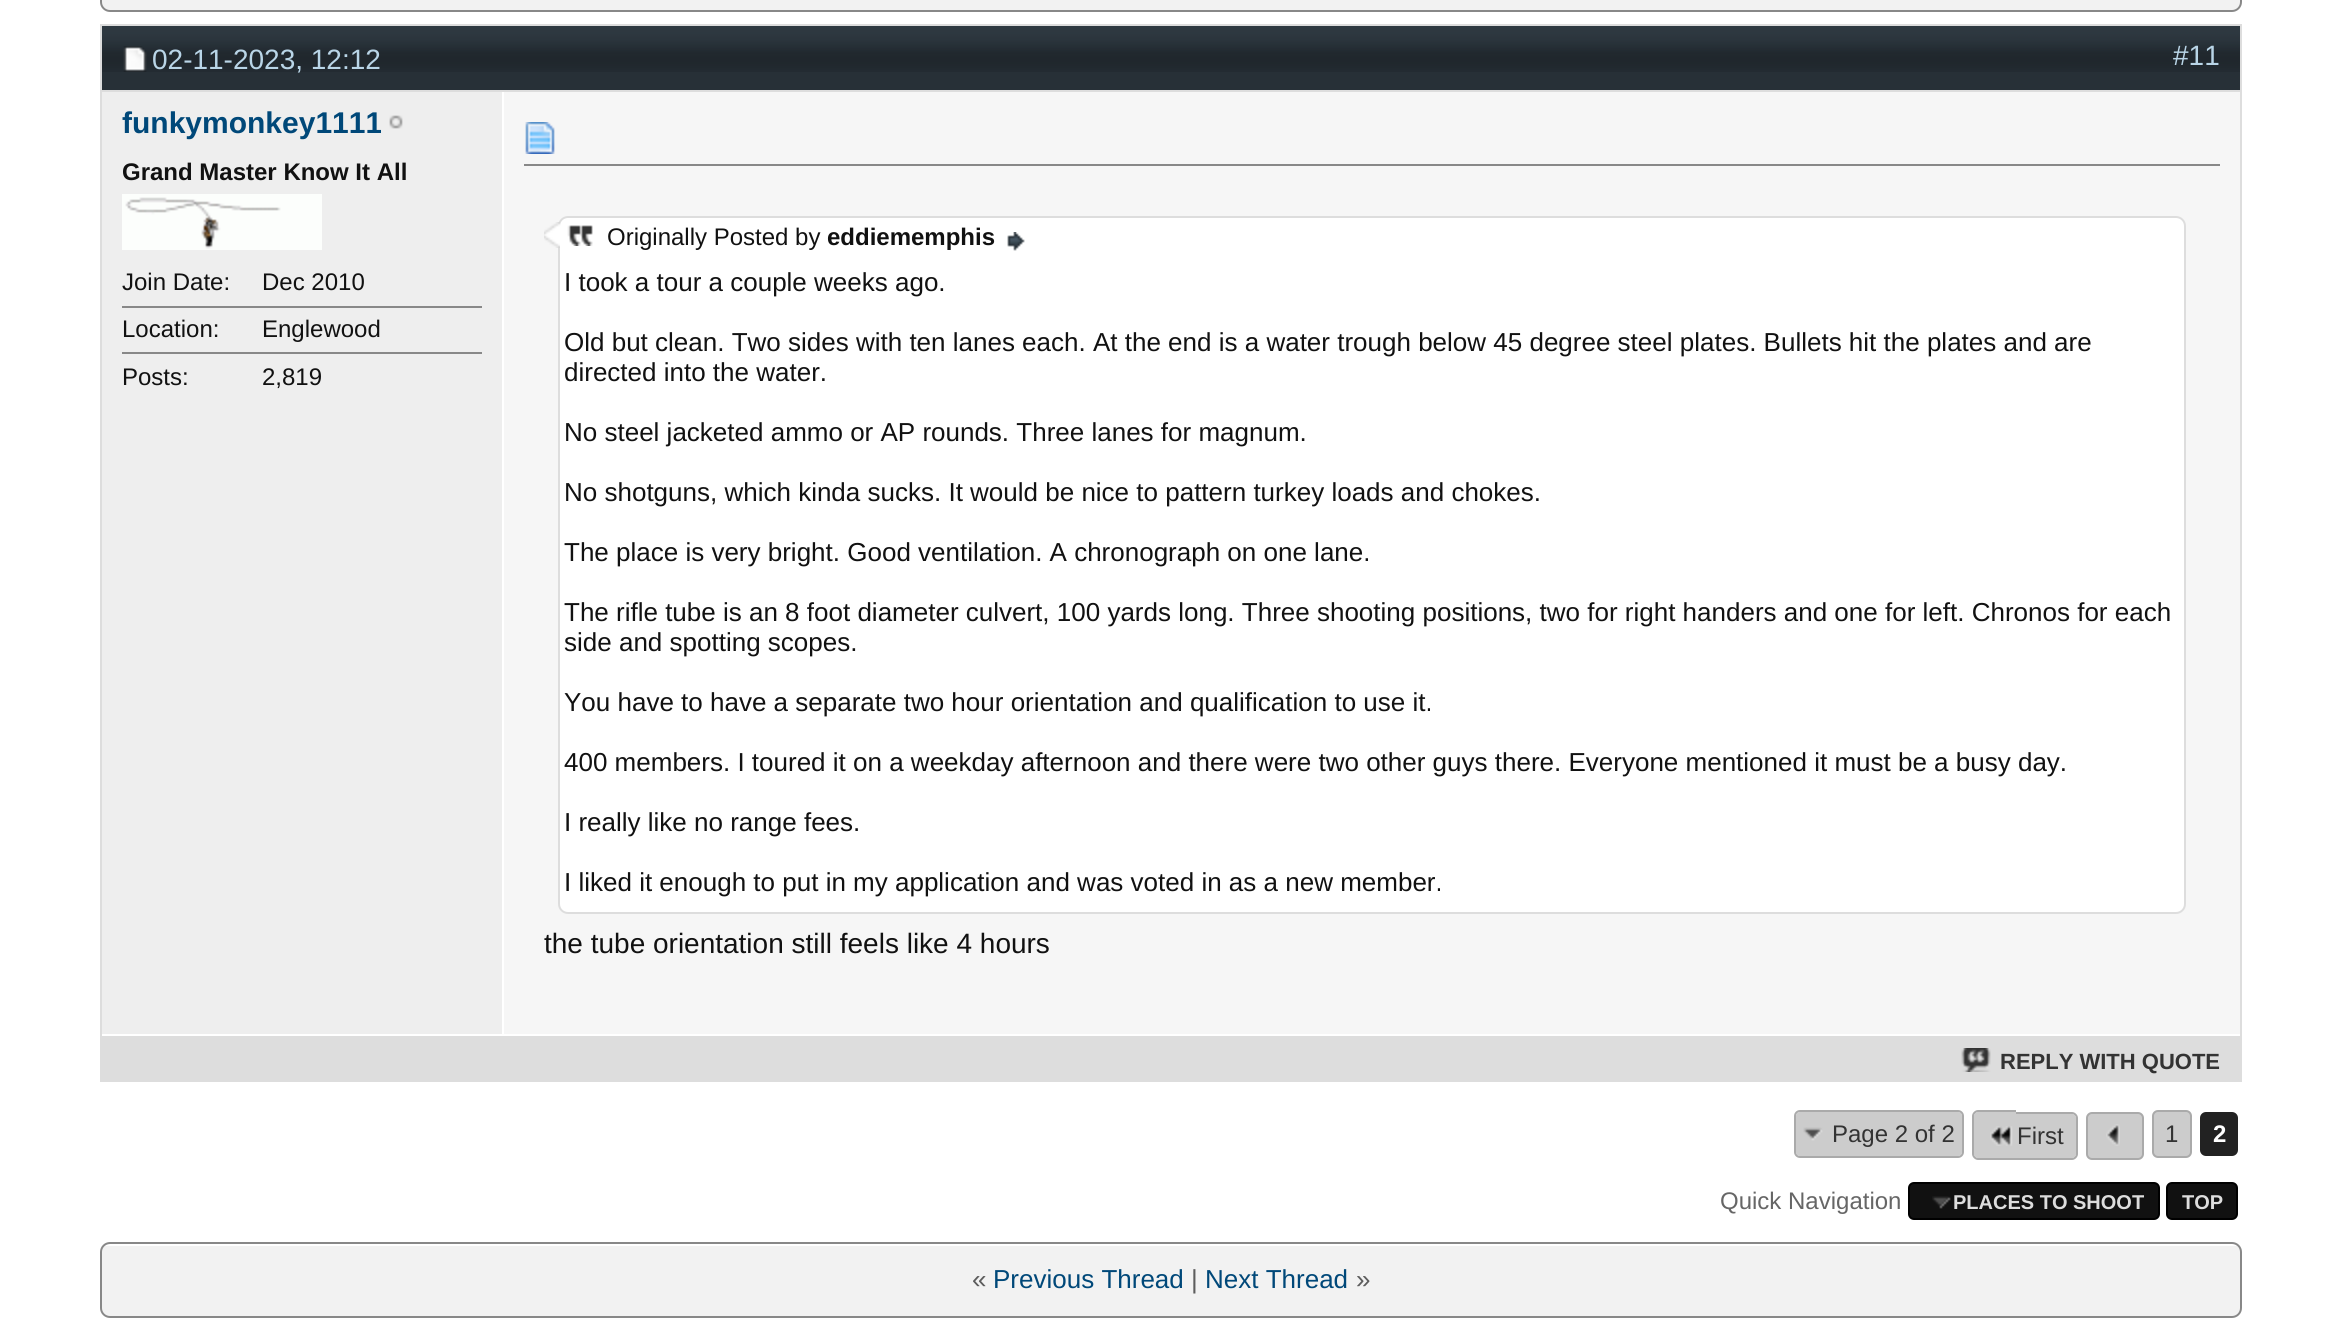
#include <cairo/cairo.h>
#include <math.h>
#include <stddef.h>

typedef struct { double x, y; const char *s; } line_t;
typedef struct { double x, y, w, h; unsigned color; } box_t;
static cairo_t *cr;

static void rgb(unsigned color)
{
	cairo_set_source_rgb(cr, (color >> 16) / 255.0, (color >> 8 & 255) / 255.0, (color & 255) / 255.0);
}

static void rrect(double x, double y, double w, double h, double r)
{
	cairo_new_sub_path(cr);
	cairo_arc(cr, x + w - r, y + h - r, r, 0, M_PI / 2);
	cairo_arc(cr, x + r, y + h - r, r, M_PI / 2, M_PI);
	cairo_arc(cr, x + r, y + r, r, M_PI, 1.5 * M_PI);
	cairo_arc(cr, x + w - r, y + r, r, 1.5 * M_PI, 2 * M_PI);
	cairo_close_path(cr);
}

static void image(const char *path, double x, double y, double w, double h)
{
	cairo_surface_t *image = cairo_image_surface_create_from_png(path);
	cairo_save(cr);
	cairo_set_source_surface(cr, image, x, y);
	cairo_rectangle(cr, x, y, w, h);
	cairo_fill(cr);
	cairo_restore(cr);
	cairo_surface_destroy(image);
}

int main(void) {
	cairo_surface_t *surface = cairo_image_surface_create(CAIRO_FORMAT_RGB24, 2338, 1342);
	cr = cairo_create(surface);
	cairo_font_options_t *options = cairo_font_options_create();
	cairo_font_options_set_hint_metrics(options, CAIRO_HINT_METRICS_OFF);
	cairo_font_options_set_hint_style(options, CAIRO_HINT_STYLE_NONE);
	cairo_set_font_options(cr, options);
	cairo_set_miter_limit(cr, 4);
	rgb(0xffffff);
	cairo_paint(cr);
	rgb(0xf2f2f2);
	rrect(102, -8, 2138, 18, 8);
	cairo_fill(cr);
	rrect(101, -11, 2140, 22, 9);
	rgb(0x888888);
	cairo_stroke(cr);
	cairo_rectangle(cr, 101, 25, 2140, 1056);
	rgb(0xdddddd);
	cairo_stroke(cr);
	rgb(0x273037);
	cairo_rectangle(cr, 102, 72, 2138, 18);
	cairo_fill(cr);
	image("img/1.png", 102, 26, 2138, 46);
	cairo_rectangle(cr, 101, 25, 2140, 66);
	rgb(0xdddddd);
	cairo_stroke(cr);
	image("img/2.png", 123, 46, 24, 26);
	rgb(0xeeeeee);
	cairo_rectangle(cr, 102, 92, 400, 942);
	cairo_fill(cr);
	image("img/3.png", 389, 115, 14, 14);
	image("img/4.png", 122, 194, 200, 56);
	{
		static const box_t items[] = {
			{122, 306, 360, 2, 0x888888},
			{122, 352, 360, 2, 0x888888},
			{504, 92, 1736, 942, 0xf6f6f6},
			{524, 164, 1696, 2, 0x888888},
		};
		for (size_t i = 0; i < sizeof items / sizeof *items; i++) {
			rgb(items[i].color);
			cairo_rectangle(cr, items[i].x, items[i].y, items[i].w, items[i].h);
			cairo_fill(cr);
		}
	}
	image("img/5.png", 525, 122, 30, 32);
	rgb(0xffffff);
	rrect(559, 217, 1626, 696, 9);
	cairo_fill_preserve(cr);
	rgb(0xdddddd);
	cairo_stroke(cr);
	image("img/6.png", 544, 222, 16, 26);
	image("img/7.png", 567, 225, 26, 21);
	image("img/8.png", 1007, 232, 18, 19);
	cairo_rectangle(cr, 102, 1036, 2138, 44);
	cairo_fill(cr);
	image("img/9.png", 1961, 1048, 30, 24);
	rgb(0xcccccc);
	rrect(1796, 1112, 166, 44, 4);
	cairo_fill(cr);
	image("img/10.png", 1803, 1127, 20, 14);
	rrect(1795, 1111, 168, 46, 5);
	rgb(0xaaaaaa);
	cairo_stroke(cr);
	rgb(0xcccccc);
	cairo_new_path(cr);
	cairo_move_to(cr, 1978, 1112);
	cairo_line_to(cr, 2016, 1112);
	cairo_line_to(cr, 2016, 1158);
	cairo_line_to(cr, 1978, 1158);
	cairo_curve_to(cr, 1976, 1158, 1974, 1156, 1974, 1154);
	cairo_line_to(cr, 1974, 1116);
	cairo_curve_to(cr, 1974, 1114, 1976, 1112, 1978, 1112);
	cairo_close_path(cr);
	cairo_fill(cr);
	rgb(0xaaaaaa);
	cairo_set_fill_rule(cr, CAIRO_FILL_RULE_EVEN_ODD);
	cairo_new_path(cr);
	cairo_move_to(cr, 1978, 1110);
	cairo_line_to(cr, 2016, 1110);
	cairo_line_to(cr, 2016, 1160);
	cairo_line_to(cr, 1978, 1160);
	cairo_curve_to(cr, 1975, 1160, 1972, 1157, 1972, 1154);
	cairo_line_to(cr, 1972, 1116);
	cairo_curve_to(cr, 1972, 1113, 1975, 1110, 1978, 1110);
	cairo_close_path(cr);
	cairo_move_to(cr, 1978, 1112);
	cairo_line_to(cr, 2016, 1112);
	cairo_line_to(cr, 2016, 1158);
	cairo_line_to(cr, 1978, 1158);
	cairo_curve_to(cr, 1976, 1158, 1974, 1156, 1974, 1154);
	cairo_line_to(cr, 1974, 1116);
	cairo_curve_to(cr, 1974, 1114, 1976, 1112, 1978, 1112);
	cairo_close_path(cr);
	cairo_fill(cr);
	image("img/11.png", 1990, 1126, 23, 20);
	rgb(0xcccccc);
	cairo_new_path(cr);
	cairo_move_to(cr, 2016, 1114);
	cairo_line_to(cr, 2072, 1114);
	cairo_curve_to(cr, 2074, 1114, 2076, 1116, 2076, 1118);
	cairo_line_to(cr, 2076, 1154);
	cairo_curve_to(cr, 2076, 1156, 2074, 1158, 2072, 1158);
	cairo_line_to(cr, 2016, 1158);
	cairo_close_path(cr);
	cairo_fill(cr);
	rgb(0xaaaaaa);
	cairo_new_path(cr);
	cairo_move_to(cr, 2016, 1112);
	cairo_line_to(cr, 2072, 1112);
	cairo_curve_to(cr, 2075, 1112, 2078, 1115, 2078, 1118);
	cairo_line_to(cr, 2078, 1154);
	cairo_curve_to(cr, 2078, 1157, 2075, 1160, 2072, 1160);
	cairo_line_to(cr, 2016, 1160);
	cairo_close_path(cr);
	cairo_move_to(cr, 2016, 1114);
	cairo_line_to(cr, 2072, 1114);
	cairo_curve_to(cr, 2074, 1114, 2076, 1116, 2076, 1118);
	cairo_line_to(cr, 2076, 1154);
	cairo_curve_to(cr, 2076, 1156, 2074, 1158, 2072, 1158);
	cairo_line_to(cr, 2016, 1158);
	cairo_close_path(cr);
	cairo_fill(cr);
	rgb(0xcccccc);
	rrect(2087, 1113, 56, 46, 5);
	cairo_fill_preserve(cr);
	rgb(0xaaaaaa);
	cairo_stroke(cr);
	image("img/12.png", 2106, 1124, 14, 22);
	rgb(0xcccccc);
	rrect(2153, 1111, 38, 46, 5);
	cairo_fill_preserve(cr);
	rgb(0xaaaaaa);
	cairo_stroke(cr);
	rgb(0x222222);
	rrect(2200, 1112, 38, 44, 6);
	cairo_fill(cr);
	rgb(0x111111);
	rrect(1909, 1183, 250, 36, 5);
	cairo_fill_preserve(cr);
	rgb(0x000000);
	cairo_stroke(cr);
	image("img/13.png", 1932, 1196, 19, 13);
	rgb(0x111111);
	rrect(2167, 1183, 70, 36, 5);
	cairo_fill_preserve(cr);
	rgb(0x000000);
	cairo_stroke(cr);
	rgb(0xf2f2f2);
	rrect(102, 1244, 2138, 72, 8);
	cairo_fill(cr);
	image("img/14.png", 105, 1244, 2132, 2);
	rrect(101, 1243, 2140, 74, 9);
	rgb(0x888888);
	cairo_stroke(cr);
	cairo_select_font_face(cr, "Liberation Sans", CAIRO_FONT_SLANT_NORMAL, CAIRO_FONT_WEIGHT_NORMAL);
	cairo_set_font_size(cr, 28);
	rgb(0xb9d5e7);
	cairo_move_to(cr, 152, 69);
	cairo_show_text(cr, "02-11-2023, 12:12");
	cairo_move_to(cr, 2173, 65);
	cairo_show_text(cr, "#11");
	cairo_select_font_face(cr, "Liberation Sans", CAIRO_FONT_SLANT_NORMAL, CAIRO_FONT_WEIGHT_BOLD);
	cairo_set_font_size(cr, 30);
	rgb(0x004879);
	cairo_move_to(cr, 122, 133);
	cairo_show_text(cr, "funkymonkey1111");
	cairo_set_font_size(cr, 24);
	rgb(0x111111);
	cairo_move_to(cr, 122, 180);
	cairo_show_text(cr, "Grand Master Know It All");
	cairo_select_font_face(cr, "Liberation Sans", CAIRO_FONT_SLANT_NORMAL, CAIRO_FONT_WEIGHT_NORMAL);
	{
		static const line_t items[] = {
			{122, 290, "Join Date:"},
			{262, 290, "Dec 2010"},
			{122, 337, "Location:"},
			{262, 337, "Englewood"},
			{122, 385, "Posts:"},
			{262, 385, "2,819"},
			{607, 245, "Originally Posted by"},
		};
		for (size_t i = 0; i < sizeof items / sizeof *items; i++) {
			cairo_move_to(cr, items[i].x, items[i].y);
			cairo_show_text(cr, items[i].s);
		}
	}
	cairo_select_font_face(cr, "Liberation Sans", CAIRO_FONT_SLANT_NORMAL, CAIRO_FONT_WEIGHT_BOLD);
	cairo_move_to(cr, 827, 245);
	cairo_show_text(cr, "eddiememphis");
	cairo_select_font_face(cr, "Liberation Sans", CAIRO_FONT_SLANT_NORMAL, CAIRO_FONT_WEIGHT_NORMAL);
	cairo_set_font_size(cr, 26);
	{
		static const line_t items[] = {
			{564, 291, "I took a tour a couple weeks ago."},
			{564, 351, "Old but clean. Two sides with ten lanes each. At the end is a water trough below 45 degree steel plates. Bullets hit the plates and are"},
			{564, 381, "directed into the water."},
			{564, 441, "No steel jacketed ammo or AP rounds. Three lanes for magnum."},
			{564, 501, "No shotguns, which kinda sucks. It would be nice to pattern turkey loads and chokes."},
			{564, 561, "The place is very bright. Good ventilation. A chronograph on one lane."},
			{564, 621, "The rifle tube is an 8 foot diameter culvert, 100 yards long. Three shooting positions, two for right handers and one for left. Chronos for each"},
			{564, 651, "side and spotting scopes."},
			{564, 711, "You have to have a separate two hour orientation and qualification to use it."},
			{564, 771, "400 members. I toured it on a weekday afternoon and there were two other guys there. Everyone mentioned it must be a busy day."},
			{564, 831, "I really like no range fees."},
			{564, 891, "I liked it enough to put in my application and was voted in as a new member."},
		};
		for (size_t i = 0; i < sizeof items / sizeof *items; i++) {
			cairo_move_to(cr, items[i].x, items[i].y);
			cairo_show_text(cr, items[i].s);
		}
	}
	cairo_set_font_size(cr, 28);
	cairo_move_to(cr, 544, 953);
	cairo_show_text(cr, "the tube orientation still feels like 4 hours");
	cairo_select_font_face(cr, "Liberation Sans", CAIRO_FONT_SLANT_NORMAL, CAIRO_FONT_WEIGHT_BOLD);
	cairo_set_font_size(cr, 22);
	rgb(0x333333);
	cairo_move_to(cr, 2000, 1069);
	cairo_show_text(cr, "REPLY WITH QUOTE");
	cairo_select_font_face(cr, "Liberation Sans", CAIRO_FONT_SLANT_NORMAL, CAIRO_FONT_WEIGHT_NORMAL);
	cairo_set_font_size(cr, 24);
	{
		static const line_t items[] = {
			{1832, 1142, "Page 2 of 2"},
			{2017, 1144, "First"},
			{2165, 1142, "1"},
		};
		for (size_t i = 0; i < sizeof items / sizeof *items; i++) {
			cairo_move_to(cr, items[i].x, items[i].y);
			cairo_show_text(cr, items[i].s);
		}
	}
	cairo_select_font_face(cr, "Liberation Sans", CAIRO_FONT_SLANT_NORMAL, CAIRO_FONT_WEIGHT_BOLD);
	rgb(0xffffff);
	cairo_move_to(cr, 2213, 1142);
	cairo_show_text(cr, "2");
	cairo_select_font_face(cr, "Liberation Sans", CAIRO_FONT_SLANT_NORMAL, CAIRO_FONT_WEIGHT_NORMAL);
	rgb(0x666666);
	cairo_move_to(cr, 1720, 1209);
	cairo_show_text(cr, "Quick Navigation");
	cairo_select_font_face(cr, "Liberation Sans", CAIRO_FONT_SLANT_NORMAL, CAIRO_FONT_WEIGHT_BOLD);
	cairo_set_font_size(cr, 20);
	rgb(0xdddddd);
	cairo_move_to(cr, 1953, 1209);
	cairo_show_text(cr, "PLACES TO SHOOT");
	cairo_move_to(cr, 2182, 1209);
	cairo_show_text(cr, "TOP");
	cairo_select_font_face(cr, "Liberation Sans", CAIRO_FONT_SLANT_NORMAL, CAIRO_FONT_WEIGHT_NORMAL);
	cairo_set_font_size(cr, 26);
	rgb(0x5d5d5d);
	cairo_move_to(cr, 972, 1288);
	cairo_show_text(cr, "«");
	rgb(0x004879);
	cairo_move_to(cr, 993, 1288);
	cairo_show_text(cr, "Previous Thread");
	rgb(0x5d5d5d);
	cairo_move_to(cr, 1191, 1288);
	cairo_show_text(cr, "|");
	rgb(0x004879);
	cairo_move_to(cr, 1205, 1288);
	cairo_show_text(cr, "Next Thread");
	rgb(0x5d5d5d);
	cairo_move_to(cr, 1356, 1288);
	cairo_show_text(cr, "»");
	cairo_surface_write_to_png(surface, "page.png");
	cairo_font_options_destroy(options);
	cairo_destroy(cr);
	cairo_surface_destroy(surface);
	return 0;
}
